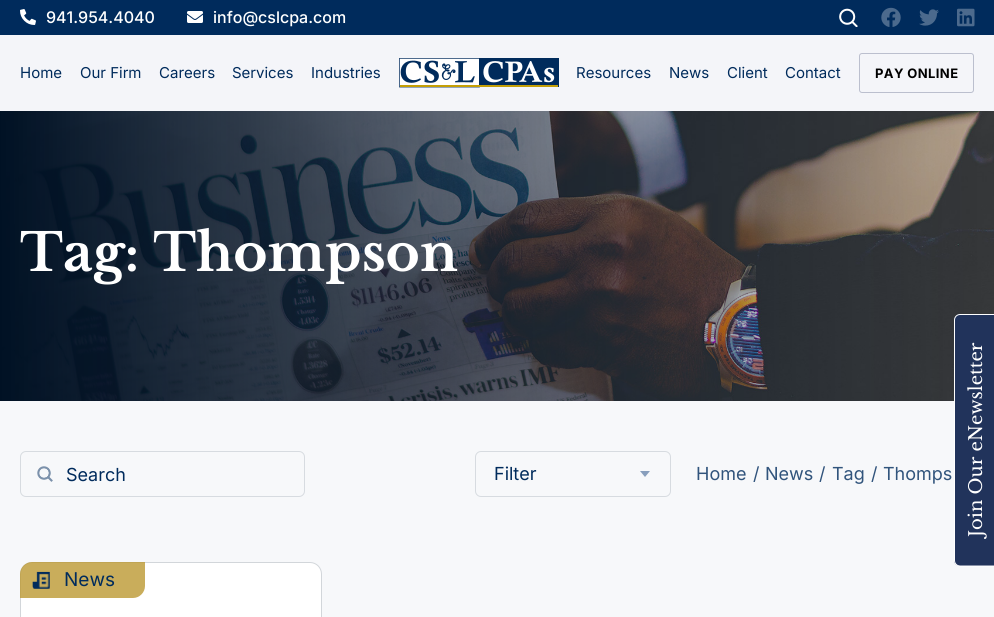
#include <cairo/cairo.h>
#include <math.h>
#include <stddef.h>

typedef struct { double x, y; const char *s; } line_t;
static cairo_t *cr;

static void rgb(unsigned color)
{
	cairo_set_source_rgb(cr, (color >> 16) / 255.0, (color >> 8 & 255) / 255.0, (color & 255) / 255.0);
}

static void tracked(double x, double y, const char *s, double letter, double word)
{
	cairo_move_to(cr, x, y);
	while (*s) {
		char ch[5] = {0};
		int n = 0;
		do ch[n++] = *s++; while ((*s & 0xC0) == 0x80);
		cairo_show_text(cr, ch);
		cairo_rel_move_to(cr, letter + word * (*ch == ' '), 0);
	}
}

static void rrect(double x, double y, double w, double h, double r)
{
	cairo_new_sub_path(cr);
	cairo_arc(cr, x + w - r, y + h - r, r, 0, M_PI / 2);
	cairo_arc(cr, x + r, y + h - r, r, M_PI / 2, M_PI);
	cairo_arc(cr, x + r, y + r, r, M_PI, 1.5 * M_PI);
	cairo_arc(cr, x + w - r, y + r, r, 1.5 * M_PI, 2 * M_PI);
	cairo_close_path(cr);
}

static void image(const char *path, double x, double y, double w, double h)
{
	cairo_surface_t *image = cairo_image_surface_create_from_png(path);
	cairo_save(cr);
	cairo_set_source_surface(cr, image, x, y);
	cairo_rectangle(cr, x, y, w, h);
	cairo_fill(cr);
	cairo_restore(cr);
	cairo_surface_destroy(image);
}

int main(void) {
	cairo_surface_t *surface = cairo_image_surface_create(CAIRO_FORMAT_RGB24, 994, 617);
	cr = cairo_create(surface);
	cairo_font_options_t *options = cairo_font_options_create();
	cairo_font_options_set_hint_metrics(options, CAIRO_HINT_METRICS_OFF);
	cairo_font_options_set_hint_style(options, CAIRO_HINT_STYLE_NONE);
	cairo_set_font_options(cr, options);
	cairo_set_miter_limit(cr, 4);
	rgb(0x002b5c);
	cairo_paint(cr);
	image("img/1.png", 20, 9, 16, 16);
	image("img/2.png", 187, 11, 16, 12);
	image("img/3.png", 839, 8, 19, 19);
	image("img/4.png", 881, 7, 20, 20);
	image("img/5.png", 919, 9, 20, 17);
	image("img/6.png", 957, 8, 18, 19);
	rgb(0xf4f5f9);
	cairo_rectangle(cr, 0, 35, 994, 76);
	cairo_fill(cr);
	image("img/7.png", 399, 58, 160, 30);
	rrect(859.5, 53.5, 114, 39, 2.5);
	rgb(0xbbbfce);
	cairo_set_line_width(cr, 1);
	cairo_stroke(cr);
	image("img/8.png", 0, 111, 994, 290);
	rgb(0xf7f8fa);
	cairo_rectangle(cr, 0, 401, 994, 216);
	cairo_fill(cr);
	rrect(20.5, 451.5, 284, 45, 5.5);
	rgb(0xd7dbe0);
	cairo_stroke(cr);
	image("img/9.png", 37, 466, 16, 16);
	rrect(475.5, 451.5, 195, 45, 5.5);
	cairo_stroke(cr);
	rgb(0x889ebc);
	cairo_new_path(cr);
	cairo_move_to(cr, 640, 471);
	cairo_line_to(cr, 650, 471);
	cairo_line_to(cr, 645, 477);
	cairo_close_path(cr);
	cairo_fill(cr);
	rgb(0xffffff);
	rrect(20.5, 562.5, 301, 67, 11.5);
	cairo_fill_preserve(cr);
	rgb(0xd2d6da);
	cairo_stroke(cr);
	cairo_set_source_rgba(cr, 0.737, 0.6, 0.196, 0.8);
	cairo_new_path(cr);
	cairo_move_to(cr, 32, 562);
	cairo_line_to(cr, 145, 562);
	cairo_line_to(cr, 145, 586);
	cairo_curve_to(cr, 145, 592.5, 139.5, 598, 133, 598);
	cairo_line_to(cr, 20, 598);
	cairo_line_to(cr, 20, 574);
	cairo_curve_to(cr, 20, 567.5, 25.5, 562, 32, 562);
	cairo_close_path(cr);
	cairo_fill(cr);
	image("img/10.png", 32, 571, 18, 18);
	rgb(0x21335b);
	cairo_new_path(cr);
	cairo_move_to(cr, 954, 560);
	cairo_line_to(cr, 954, 320);
	cairo_curve_to(cr, 954, 317, 957, 314, 960, 314);
	cairo_line_to(cr, 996, 314);
	cairo_line_to(cr, 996, 566);
	cairo_line_to(cr, 960, 566);
	cairo_curve_to(cr, 957, 566, 954, 564, 954, 560);
	cairo_close_path(cr);
	cairo_fill(cr);
	cairo_new_path(cr);
	cairo_move_to(cr, 954.5, 560.5);
	cairo_line_to(cr, 954.5, 320);
	cairo_curve_to(cr, 954.5, 317, 957, 314.5, 960, 314.5);
	cairo_line_to(cr, 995.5, 314.5);
	cairo_line_to(cr, 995.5, 566);
	cairo_line_to(cr, 960, 566);
	cairo_curve_to(cr, 957, 566, 954.5, 563.5, 954.5, 560.5);
	cairo_close_path(cr);
	rgb(0xffffff);
	cairo_stroke(cr);
	cairo_select_font_face(cr, "Inter Medium", CAIRO_FONT_SLANT_NORMAL, CAIRO_FONT_WEIGHT_NORMAL);
	cairo_set_font_size(cr, 16);
	cairo_move_to(cr, 46, 23);
	cairo_show_text(cr, "941.954.4040");
	cairo_move_to(cr, 213, 23);
	cairo_show_text(cr, "info@cslcpa.com");
	cairo_select_font_face(cr, "Inter", CAIRO_FONT_SLANT_NORMAL, CAIRO_FONT_WEIGHT_NORMAL);
	cairo_set_font_size(cr, 15);
	rgb(0x002b5c);
	{
		static const line_t items[] = {
			{20, 78, "Home"},
			{80, 78, "Our Firm"},
			{159, 78, "Careers"},
			{232, 78, "Services"},
			{311, 78, "Industries"},
			{576, 78, "Resources"},
			{669, 78, "News"},
			{727, 78, "Client"},
			{785, 78, "Contact"},
		};
		for (size_t i = 0; i < sizeof items / sizeof *items; i++) {
			cairo_move_to(cr, items[i].x, items[i].y);
			cairo_show_text(cr, items[i].s);
		}
	}
	cairo_select_font_face(cr, "Inter", CAIRO_FONT_SLANT_NORMAL, CAIRO_FONT_WEIGHT_BOLD);
	cairo_set_font_size(cr, 13);
	rgb(0x000000);
	tracked(875, 78, "PAY ONLINE", 0.4, 0);
	cairo_select_font_face(cr, "Libre Baskerville", CAIRO_FONT_SLANT_NORMAL, CAIRO_FONT_WEIGHT_BOLD);
	cairo_set_font_size(cr, 52);
	rgb(0xffffff);
	cairo_move_to(cr, 20, 271);
	cairo_show_text(cr, "Tag: Thompson");
	cairo_select_font_face(cr, "Inter", CAIRO_FONT_SLANT_NORMAL, CAIRO_FONT_WEIGHT_NORMAL);
	cairo_set_font_size(cr, 18);
	rgb(0x002b5c);
	cairo_move_to(cr, 66, 481);
	cairo_show_text(cr, "Search");
	cairo_move_to(cr, 494, 480);
	cairo_show_text(cr, "Filter");
	rgb(0x31547c);
	{
		static const line_t items[] = {
			{696, 480, "Home"},
			{753, 480, "/"},
			{765, 480, "News"},
			{819, 480, "/"},
			{832, 480, "Tag"},
			{871, 480, "/"},
			{883, 480, "Thomps"},
		};
		for (size_t i = 0; i < sizeof items / sizeof *items; i++) {
			cairo_move_to(cr, items[i].x, items[i].y);
			cairo_show_text(cr, items[i].s);
		}
	}
	cairo_set_font_size(cr, 19);
	rgb(0x002b5c);
	cairo_move_to(cr, 64, 586);
	cairo_show_text(cr, "News");
	cairo_select_font_face(cr, "Libre Baskerville", CAIRO_FONT_SLANT_NORMAL, CAIRO_FONT_WEIGHT_NORMAL);
	cairo_set_font_size(cr, 18);
	rgb(0xffffff);
	cairo_save(cr);
	cairo_translate(cr, 982, 537);
	cairo_rotate(cr, -90 * M_PI / 180);
	cairo_move_to(cr, 0, 0);
	cairo_show_text(cr, "Join Our eNewsletter");
	cairo_restore(cr);
	cairo_surface_write_to_png(surface, "page.png");
	cairo_font_options_destroy(options);
	cairo_destroy(cr);
	cairo_surface_destroy(surface);
	return 0;
}
